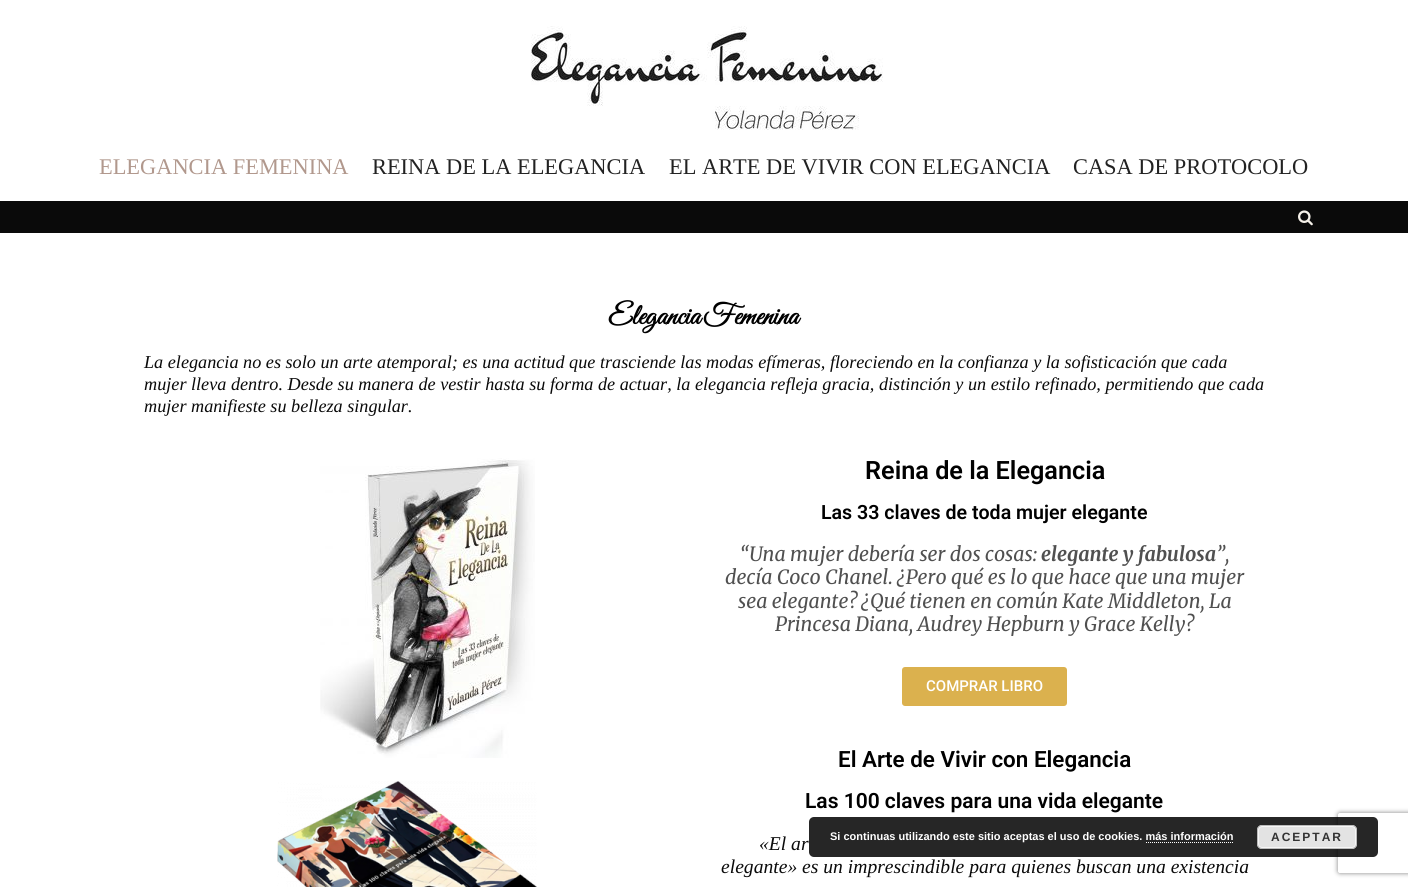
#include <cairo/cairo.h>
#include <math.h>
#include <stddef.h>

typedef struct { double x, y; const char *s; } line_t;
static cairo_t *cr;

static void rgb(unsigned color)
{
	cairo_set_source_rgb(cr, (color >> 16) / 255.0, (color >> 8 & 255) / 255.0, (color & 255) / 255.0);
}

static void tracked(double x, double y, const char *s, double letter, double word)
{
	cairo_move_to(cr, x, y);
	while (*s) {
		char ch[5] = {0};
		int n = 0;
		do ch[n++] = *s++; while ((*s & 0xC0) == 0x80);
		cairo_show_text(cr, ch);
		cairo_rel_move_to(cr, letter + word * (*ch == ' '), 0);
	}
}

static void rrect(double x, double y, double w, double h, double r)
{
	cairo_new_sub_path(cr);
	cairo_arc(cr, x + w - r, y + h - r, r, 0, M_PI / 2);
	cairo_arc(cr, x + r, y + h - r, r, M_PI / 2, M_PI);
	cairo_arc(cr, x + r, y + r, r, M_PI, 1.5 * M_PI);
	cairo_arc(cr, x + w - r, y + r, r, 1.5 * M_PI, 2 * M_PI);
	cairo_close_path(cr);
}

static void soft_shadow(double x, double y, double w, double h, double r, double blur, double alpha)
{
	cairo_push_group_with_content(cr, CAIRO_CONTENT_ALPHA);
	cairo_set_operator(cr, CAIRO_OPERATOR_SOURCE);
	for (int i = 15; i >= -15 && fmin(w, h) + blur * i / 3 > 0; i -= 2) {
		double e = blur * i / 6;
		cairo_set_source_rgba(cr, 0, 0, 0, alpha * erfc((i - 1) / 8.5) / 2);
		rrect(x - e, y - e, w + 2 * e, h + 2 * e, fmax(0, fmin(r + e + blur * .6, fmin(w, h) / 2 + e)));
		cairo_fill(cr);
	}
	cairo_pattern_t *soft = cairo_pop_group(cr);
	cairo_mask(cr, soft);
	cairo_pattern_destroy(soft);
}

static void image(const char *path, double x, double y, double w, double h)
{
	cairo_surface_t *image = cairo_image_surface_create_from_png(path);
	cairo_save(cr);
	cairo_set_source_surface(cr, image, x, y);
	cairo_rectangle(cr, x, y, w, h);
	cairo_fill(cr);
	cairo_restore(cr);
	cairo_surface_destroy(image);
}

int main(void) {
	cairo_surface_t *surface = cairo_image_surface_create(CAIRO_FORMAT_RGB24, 1408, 887);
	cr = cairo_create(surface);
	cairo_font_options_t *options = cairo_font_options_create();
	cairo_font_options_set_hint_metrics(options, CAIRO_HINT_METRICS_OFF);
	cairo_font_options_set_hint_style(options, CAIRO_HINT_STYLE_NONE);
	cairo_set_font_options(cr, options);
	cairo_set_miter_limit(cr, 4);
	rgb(0xffffff);
	cairo_paint(cr);
	image("img/1.png", 531, 26, 352, 104);
	rgb(0x0a0a0a);
	cairo_rectangle(cr, 0, 201, 1408, 32);
	cairo_fill(cr);
	image("img/2.png", 1298, 210, 15, 16);
	image("img/3.png", 320, 458, 215, 300);
	image("img/4.png", 277, 781, 260, 106);
	rgb(0xdbb14e);
	rrect(902, 667, 165, 39, 3);
	cairo_fill(cr);
	cairo_save(cr);
	cairo_set_fill_rule(cr, CAIRO_FILL_RULE_EVEN_ODD);
	cairo_new_path(cr);
	cairo_move_to(cr, 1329, 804);
	cairo_line_to(cr, 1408, 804);
	cairo_line_to(cr, 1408, 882);
	cairo_line_to(cr, 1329, 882);
	cairo_close_path(cr);
	cairo_move_to(cr, 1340, 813);
	cairo_line_to(cr, 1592, 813);
	cairo_curve_to(cr, 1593, 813, 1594, 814, 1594, 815);
	cairo_line_to(cr, 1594, 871);
	cairo_curve_to(cr, 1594, 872, 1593, 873, 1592, 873);
	cairo_line_to(cr, 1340, 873);
	cairo_curve_to(cr, 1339, 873, 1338, 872, 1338, 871);
	cairo_line_to(cr, 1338, 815);
	cairo_curve_to(cr, 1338, 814, 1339, 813, 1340, 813);
	cairo_close_path(cr);
	cairo_clip(cr);
	rgb(0x808080);
	soft_shadow(1338, 813, 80, 60, 2, 2.5, 1);
	cairo_restore(cr);
	cairo_set_source_rgba(cr, 0, 0, 0, 0.85);
	rrect(809, 817, 569, 40, 5);
	cairo_fill(cr);
	rgb(0xe3e3e3);
	rrect(1257, 825, 100, 24, 5);
	cairo_fill(cr);
	rrect(1258.5, 826.5, 97, 21, 3.5);
	rgb(0xf6f6f6);
	cairo_set_line_width(cr, 1);
	cairo_stroke(cr);
	rrect(1257.5, 825.5, 99, 23, 4.5);
	rgb(0xbbbbbb);
	cairo_stroke(cr);
	cairo_new_path(cr);
	cairo_move_to(cr, 1146, 842.5);
	cairo_line_to(cr, 1234, 842.5);
	rgb(0xffffff);
	cairo_set_dash(cr, (double[]){1, 1}, 2, 0);
	cairo_stroke(cr);
	cairo_select_font_face(cr, "Liberation Serif", CAIRO_FONT_SLANT_NORMAL, CAIRO_FONT_WEIGHT_NORMAL);
	cairo_set_font_size(cr, 22.4);
	rgb(0xb1988d);
	cairo_move_to(cr, 99, 174);
	cairo_show_text(cr, "ELEGANCIA FEMENINA");
	rgb(0x222222);
	{
		static const line_t items[] = {
			{372, 174, "REINA DE LA ELEGANCIA"},
			{669, 174, "EL ARTE DE VIVIR CON ELEGANCIA"},
			{1073, 174, "CASA DE PROTOCOLO"},
		};
		for (size_t i = 0; i < sizeof items / sizeof *items; i++) {
			cairo_move_to(cr, items[i].x, items[i].y);
			cairo_show_text(cr, items[i].s);
		}
	}
	cairo_select_font_face(cr, "Great Vibes", CAIRO_FONT_SLANT_NORMAL, CAIRO_FONT_WEIGHT_BOLD);
	cairo_set_font_size(cr, 29);
	rgb(0x000000);
	tracked(608, 324, "Elegancia Femenina", 0, -2);
	cairo_select_font_face(cr, "Liberation Serif", CAIRO_FONT_SLANT_ITALIC, CAIRO_FONT_WEIGHT_NORMAL);
	cairo_set_font_size(cr, 18.2);
	rgb(0x0a0a0a);
	{
		static const line_t items[] = {
			{144, 368, "La elegancia no es solo un arte atemporal; es una actitud que trasciende las modas efímeras, floreciendo en la confianza y la sofisticación que cada"},
			{144, 390, "mujer lleva dentro. Desde su manera de vestir hasta su forma de actuar, la elegancia refleja gracia, distinción y un estilo refinado, permitiendo que cada"},
			{144, 412, "mujer manifieste su belleza singular."},
		};
		for (size_t i = 0; i < sizeof items / sizeof *items; i++) {
			cairo_move_to(cr, items[i].x, items[i].y);
			cairo_show_text(cr, items[i].s);
		}
	}
	cairo_select_font_face(cr, "Roboto SemiBold", CAIRO_FONT_SLANT_NORMAL, CAIRO_FONT_WEIGHT_NORMAL);
	cairo_set_font_size(cr, 25.25);
	rgb(0x000000);
	cairo_move_to(cr, 865, 479);
	cairo_show_text(cr, "Reina de la Elegancia");
	cairo_set_font_size(cr, 19.6);
	cairo_move_to(cr, 821, 519);
	cairo_show_text(cr, "Las 33 claves de toda mujer elegante");
	cairo_select_font_face(cr, "Merriweather", CAIRO_FONT_SLANT_ITALIC, CAIRO_FONT_WEIGHT_NORMAL);
	rgb(0x505050);
	cairo_move_to(cr, 740, 561);
	cairo_show_text(cr, "“Una mujer debería ser dos cosas:");
	cairo_select_font_face(cr, "Merriweather", CAIRO_FONT_SLANT_ITALIC, CAIRO_FONT_WEIGHT_BOLD);
	cairo_move_to(cr, 1041, 561);
	cairo_show_text(cr, "elegante y fabulosa");
	cairo_select_font_face(cr, "Merriweather", CAIRO_FONT_SLANT_ITALIC, CAIRO_FONT_WEIGHT_NORMAL);
	{
		static const line_t items[] = {
			{1216, 561, "”,"},
			{725, 584, "decía Coco Chanel. ¿Pero qué es lo que hace que una mujer"},
			{738, 608, "sea elegante? ¿Qué tienen en común Kate Middleton, La"},
			{775, 631, "Princesa Diana, Audrey Hepburn y Grace Kelly?"},
		};
		for (size_t i = 0; i < sizeof items / sizeof *items; i++) {
			cairo_move_to(cr, items[i].x, items[i].y);
			cairo_show_text(cr, items[i].s);
		}
	}
	cairo_select_font_face(cr, "Roboto Medium", CAIRO_FONT_SLANT_NORMAL, CAIRO_FONT_WEIGHT_NORMAL);
	cairo_set_font_size(cr, 15);
	rgb(0xffffff);
	cairo_move_to(cr, 926, 691);
	cairo_show_text(cr, "COMPRAR LIBRO");
	cairo_select_font_face(cr, "Roboto SemiBold", CAIRO_FONT_SLANT_NORMAL, CAIRO_FONT_WEIGHT_NORMAL);
	cairo_set_font_size(cr, 22.4);
	rgb(0x000000);
	cairo_move_to(cr, 838, 767);
	cairo_show_text(cr, "El Arte de Vivir con Elegancia");
	cairo_set_font_size(cr, 21);
	cairo_move_to(cr, 805, 808);
	cairo_show_text(cr, "Las 100 claves para una vida elegante");
	cairo_select_font_face(cr, "Liberation Serif", CAIRO_FONT_SLANT_ITALIC, CAIRO_FONT_WEIGHT_NORMAL);
	cairo_set_font_size(cr, 19.6);
	rgb(0x0a0a0a);
	cairo_move_to(cr, 759, 850);
	cairo_show_text(cr, "«El ar");
	cairo_move_to(cr, 721, 873);
	cairo_show_text(cr, "elegante» es un imprescindible para quienes buscan una existencia");
	cairo_select_font_face(cr, "Liberation Sans", CAIRO_FONT_SLANT_NORMAL, CAIRO_FONT_WEIGHT_BOLD);
	cairo_set_font_size(cr, 11);
	rgb(0xffffff);
	cairo_move_to(cr, 830, 840);
	cairo_show_text(cr, "Si continuas utilizando este sitio aceptas el uso de cookies. más información");
	cairo_set_font_size(cr, 12);
	rgb(0x333333);
	tracked(1271, 841, "ACEPTAR", 2, 0);
	cairo_surface_write_to_png(surface, "page.png");
	cairo_font_options_destroy(options);
	cairo_destroy(cr);
	cairo_surface_destroy(surface);
	return 0;
}
